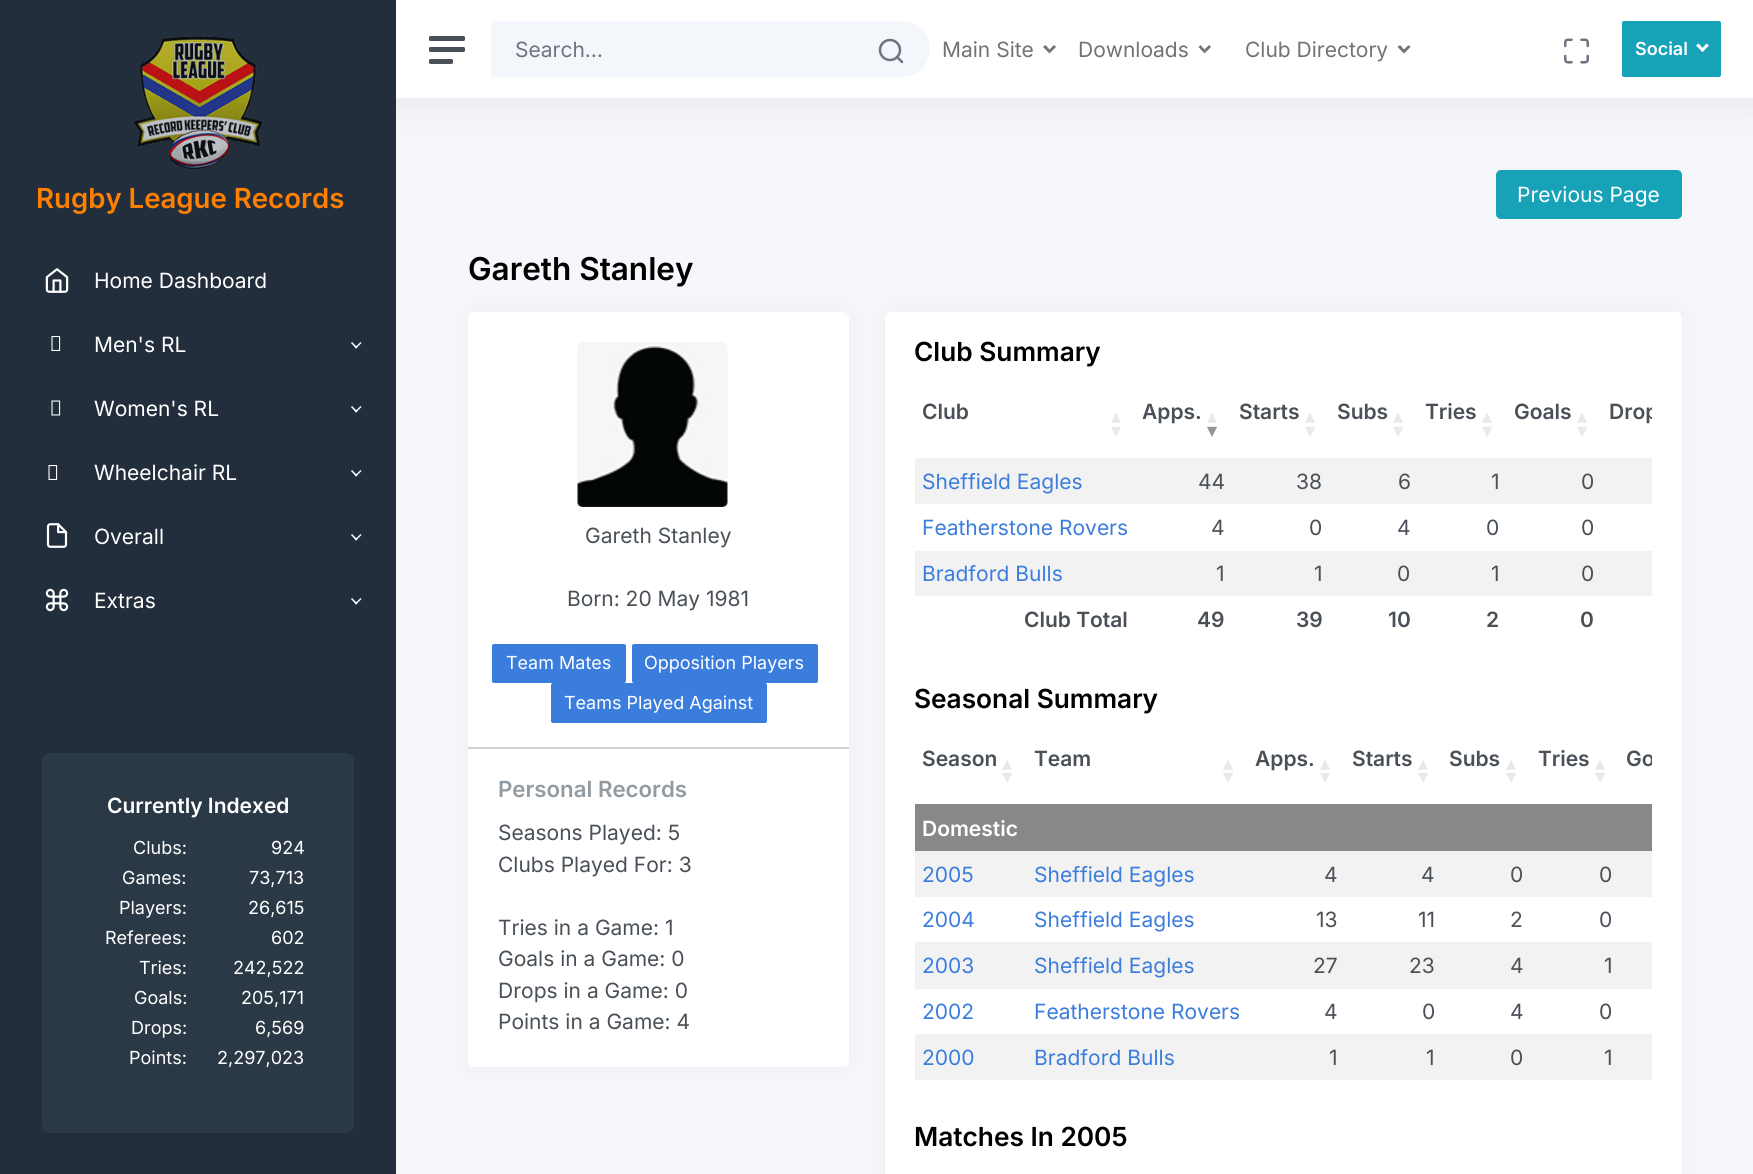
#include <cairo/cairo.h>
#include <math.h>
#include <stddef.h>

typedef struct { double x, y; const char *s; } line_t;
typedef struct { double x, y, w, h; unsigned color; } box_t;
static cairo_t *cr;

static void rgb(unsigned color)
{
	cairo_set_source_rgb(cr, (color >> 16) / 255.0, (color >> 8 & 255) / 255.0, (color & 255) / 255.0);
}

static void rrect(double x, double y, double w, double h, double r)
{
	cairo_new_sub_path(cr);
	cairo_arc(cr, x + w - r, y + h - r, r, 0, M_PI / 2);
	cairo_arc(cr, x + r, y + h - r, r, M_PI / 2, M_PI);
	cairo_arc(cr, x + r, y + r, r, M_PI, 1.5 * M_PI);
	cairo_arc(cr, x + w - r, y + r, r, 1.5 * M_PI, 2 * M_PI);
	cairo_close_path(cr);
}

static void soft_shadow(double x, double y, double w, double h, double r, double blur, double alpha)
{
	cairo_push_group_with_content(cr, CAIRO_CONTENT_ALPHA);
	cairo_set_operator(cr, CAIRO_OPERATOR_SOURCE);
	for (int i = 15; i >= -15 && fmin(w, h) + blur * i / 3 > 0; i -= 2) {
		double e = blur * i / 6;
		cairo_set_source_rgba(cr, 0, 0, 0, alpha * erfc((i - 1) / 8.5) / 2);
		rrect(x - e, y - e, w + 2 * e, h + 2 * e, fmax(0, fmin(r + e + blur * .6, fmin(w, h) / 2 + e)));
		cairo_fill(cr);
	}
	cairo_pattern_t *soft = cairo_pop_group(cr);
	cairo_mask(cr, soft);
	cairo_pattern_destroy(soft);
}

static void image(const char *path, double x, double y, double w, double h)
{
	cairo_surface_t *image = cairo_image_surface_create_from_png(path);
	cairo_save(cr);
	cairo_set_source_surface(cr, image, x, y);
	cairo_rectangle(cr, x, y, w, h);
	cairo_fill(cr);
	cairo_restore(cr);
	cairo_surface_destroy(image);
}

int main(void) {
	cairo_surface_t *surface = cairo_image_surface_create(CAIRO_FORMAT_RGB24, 1753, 1174);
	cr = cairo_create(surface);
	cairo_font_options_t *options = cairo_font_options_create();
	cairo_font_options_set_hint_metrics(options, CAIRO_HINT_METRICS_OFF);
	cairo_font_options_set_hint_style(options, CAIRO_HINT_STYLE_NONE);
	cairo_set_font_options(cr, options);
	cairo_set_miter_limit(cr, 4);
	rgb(0x222e3c);
	cairo_paint(cr);
	image("img/1.png", 133, 36, 131, 134);
	image("img/2.png", 45, 268, 24, 25);
	image("img/3.png", 51, 336, 10, 15);
	rgb(0xffffff);
	cairo_new_path(cr);
	cairo_move_to(cr, 360.5, 342);
	cairo_line_to(cr, 361.5, 343);
	cairo_line_to(cr, 356, 348.5);
	cairo_line_to(cr, 355, 347.5);
	cairo_close_path(cr);
	cairo_fill(cr);
	cairo_new_path(cr);
	cairo_move_to(cr, 352, 342);
	cairo_line_to(cr, 357.5, 347.5);
	cairo_line_to(cr, 356, 348.5);
	cairo_line_to(cr, 351, 343);
	cairo_close_path(cr);
	cairo_fill(cr);
	image("img/4.png", 51, 400, 10, 16);
	cairo_new_path(cr);
	cairo_move_to(cr, 360.5, 406);
	cairo_line_to(cr, 361.5, 407);
	cairo_line_to(cr, 356, 412.5);
	cairo_line_to(cr, 355, 411.5);
	cairo_close_path(cr);
	cairo_fill(cr);
	cairo_new_path(cr);
	cairo_move_to(cr, 352, 406);
	cairo_line_to(cr, 357.5, 411.5);
	cairo_line_to(cr, 356, 412.5);
	cairo_line_to(cr, 351, 407);
	cairo_close_path(cr);
	cairo_fill(cr);
	image("img/3.png", 48, 465, 10, 15);
	cairo_new_path(cr);
	cairo_move_to(cr, 360.5, 470);
	cairo_line_to(cr, 361.5, 471);
	cairo_line_to(cr, 356, 476.5);
	cairo_line_to(cr, 355, 475.5);
	cairo_close_path(cr);
	cairo_fill(cr);
	cairo_new_path(cr);
	cairo_move_to(cr, 352, 470);
	cairo_line_to(cr, 357.5, 475.5);
	cairo_line_to(cr, 356, 476.5);
	cairo_line_to(cr, 351, 471);
	cairo_close_path(cr);
	cairo_fill(cr);
	image("img/5.png", 46, 523, 22, 25);
	cairo_new_path(cr);
	cairo_move_to(cr, 360.5, 534);
	cairo_line_to(cr, 361.5, 535);
	cairo_line_to(cr, 356, 540.5);
	cairo_line_to(cr, 355, 539.5);
	cairo_close_path(cr);
	cairo_fill(cr);
	cairo_new_path(cr);
	cairo_move_to(cr, 352, 534);
	cairo_line_to(cr, 357.5, 539.5);
	cairo_line_to(cr, 356, 540.5);
	cairo_line_to(cr, 351, 535);
	cairo_close_path(cr);
	cairo_fill(cr);
	image("img/6.png", 45, 588, 24, 24);
	cairo_new_path(cr);
	cairo_move_to(cr, 360.5, 598);
	cairo_line_to(cr, 361.5, 599);
	cairo_line_to(cr, 356, 604.5);
	cairo_line_to(cr, 355, 603.5);
	cairo_close_path(cr);
	cairo_fill(cr);
	cairo_new_path(cr);
	cairo_move_to(cr, 352, 598);
	cairo_line_to(cr, 357.5, 603.5);
	cairo_line_to(cr, 356, 604.5);
	cairo_line_to(cr, 351, 599);
	cairo_close_path(cr);
	cairo_fill(cr);
	rgb(0x2b3947);
	rrect(42, 753, 312, 380, 8);
	cairo_fill(cr);
	rgb(0xf5f7fb);
	cairo_rectangle(cr, 396, 98, 1357, 1076);
	cairo_fill(cr);
	rgb(0x17a2b8);
	rrect(1497, 171, 184, 47, 4);
	cairo_fill_preserve(cr);
	cairo_stroke(cr);
	cairo_save(cr);
	cairo_rectangle(cr, 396, 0, 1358, 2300);
	cairo_clip(cr);
	rgb(0x212529);
	soft_shadow(396, 0, 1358, 98, 0, 24, 0.1);
	cairo_restore(cr);
	rgb(0xffffff);
	cairo_rectangle(cr, 396, 0, 1357, 98);
	cairo_fill(cr);
	rgb(0x495057);
	rrect(429, 47, 36, 5, 1.5);
	cairo_fill(cr);
	rrect(429, 36, 36, 5, 1.5);
	cairo_fill(cr);
	rrect(429, 59, 24, 5, 1.5);
	cairo_fill(cr);
	rgb(0xf3f6fa);
	cairo_rectangle(cr, 491, 21, 361, 56);
	cairo_fill(cr);
	cairo_new_path(cr);
	cairo_move_to(cr, 852, 21);
	cairo_line_to(cr, 902, 21);
	cairo_curve_to(cr, 917.5, 21, 930, 33.5, 930, 49);
	cairo_curve_to(cr, 930, 64.5, 917.5, 77, 902, 77);
	cairo_line_to(cr, 852, 77);
	cairo_close_path(cr);
	cairo_fill(cr);
	cairo_arc(cr, 890, 50, 10, 0, 2 * M_PI);
	rgb(0x6c757d);
	cairo_set_line_width(cr, 2.5);
	cairo_stroke(cr);
	cairo_new_path(cr);
	cairo_move_to(cr, 902, 62);
	cairo_line_to(cr, 897, 57);
	cairo_set_line_cap(cr, CAIRO_LINE_CAP_ROUND);
	cairo_set_line_join(cr, CAIRO_LINE_JOIN_ROUND);
	cairo_stroke(cr);
	rgb(0x737373);
	cairo_new_path(cr);
	cairo_move_to(cr, 1056, 47);
	cairo_line_to(cr, 1049.5, 53.5);
	cairo_line_to(cr, 1049.5, 49.5);
	cairo_line_to(cr, 1054, 45);
	cairo_close_path(cr);
	cairo_fill(cr);
	cairo_set_source_rgba(cr, 0, 0, 0, 0.55);
	cairo_new_path(cr);
	cairo_move_to(cr, 1049.5, 53.5);
	cairo_line_to(cr, 1043, 47);
	cairo_line_to(cr, 1045.5, 45);
	cairo_line_to(cr, 1049.5, 49.5);
	cairo_close_path(cr);
	cairo_fill(cr);
	rgb(0x737373);
	cairo_new_path(cr);
	cairo_move_to(cr, 1211, 47);
	cairo_line_to(cr, 1204.5, 53.5);
	cairo_line_to(cr, 1204.5, 49.5);
	cairo_line_to(cr, 1209, 45);
	cairo_close_path(cr);
	cairo_fill(cr);
	cairo_set_source_rgba(cr, 0, 0, 0, 0.55);
	cairo_new_path(cr);
	cairo_move_to(cr, 1204.5, 53.5);
	cairo_line_to(cr, 1198.5, 47);
	cairo_line_to(cr, 1200.5, 45);
	cairo_line_to(cr, 1204.5, 49.5);
	cairo_close_path(cr);
	cairo_fill(cr);
	rgb(0x737373);
	cairo_new_path(cr);
	cairo_move_to(cr, 1410.5, 47);
	cairo_line_to(cr, 1404, 53.5);
	cairo_line_to(cr, 1404, 49.5);
	cairo_line_to(cr, 1408.5, 45);
	cairo_close_path(cr);
	cairo_move_to(cr, 1404, 53.5);
	cairo_line_to(cr, 1397.5, 47);
	cairo_line_to(cr, 1400, 45);
	cairo_line_to(cr, 1404, 49.5);
	cairo_close_path(cr);
	cairo_fill(cr);
	image("img/7.png", 1564, 38, 25, 26);
	rgb(0x17a2b8);
	rrect(1623, 22, 97, 54, 1);
	cairo_fill_preserve(cr);
	cairo_set_line_width(cr, 2);
	cairo_set_line_cap(cr, CAIRO_LINE_CAP_BUTT);
	cairo_set_line_join(cr, CAIRO_LINE_JOIN_MITER);
	cairo_stroke(cr);
	rgb(0xffffff);
	cairo_new_path(cr);
	cairo_move_to(cr, 1706.5, 43.5);
	cairo_line_to(cr, 1709, 45.5);
	cairo_line_to(cr, 1702.5, 52);
	cairo_line_to(cr, 1700.5, 50);
	cairo_close_path(cr);
	cairo_fill(cr);
	cairo_new_path(cr);
	cairo_move_to(cr, 1698.5, 43.5);
	cairo_line_to(cr, 1704.5, 50);
	cairo_line_to(cr, 1702.5, 52);
	cairo_line_to(cr, 1696, 45.5);
	cairo_close_path(cr);
	cairo_fill(cr);
	rgb(0x212529);
	soft_shadow(468, 312, 381, 755, 6, 10.5, 0.05);
	rgb(0xffffff);
	rrect(468, 312, 381, 755, 6);
	cairo_fill(cr);
	image("img/8.png", 577, 342, 151, 165);
	rgb(0x3b7ddd);
	rrect(493, 645, 132, 37, 1);
	cairo_fill_preserve(cr);
	cairo_stroke(cr);
	rrect(633, 645, 184, 37, 1);
	cairo_fill_preserve(cr);
	cairo_stroke(cr);
	rrect(552, 684, 214, 38, 1);
	cairo_fill_preserve(cr);
	cairo_stroke(cr);
	rgb(0xd2d3d5);
	cairo_rectangle(cr, 468, 747, 381, 2);
	cairo_fill(cr);
	rgb(0x212529);
	soft_shadow(885, 312, 797, 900, 6, 10.5, 0.05);
	rgb(0xffffff);
	cairo_new_path(cr);
	cairo_move_to(cr, 891, 312);
	cairo_line_to(cr, 1676, 312);
	cairo_curve_to(cr, 1679.5, 312, 1682, 314.5, 1682, 318);
	cairo_line_to(cr, 1682, 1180);
	cairo_line_to(cr, 885, 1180);
	cairo_line_to(cr, 885, 318);
	cairo_curve_to(cr, 885, 314.5, 887.5, 312, 891, 312);
	cairo_close_path(cr);
	cairo_fill(cr);
	{
		static const box_t items[] = {
			{915, 458, 737, 46, 0xf2f2f2},
			{915, 551, 737, 45, 0xf2f2f2},
			{915, 804, 737, 47, 0x888888},
			{915, 851, 737, 46, 0xf2f2f2},
			{915, 942, 737, 47, 0xf2f2f2},
			{915, 1034, 737, 46, 0xf2f2f2},
		};
		for (size_t i = 0; i < sizeof items / sizeof *items; i++) {
			rgb(items[i].color);
			cairo_rectangle(cr, items[i].x, items[i].y, items[i].w, items[i].h);
			cairo_fill(cr);
		}
	}
	cairo_select_font_face(cr, "Inter SemiBold", CAIRO_FONT_SLANT_NORMAL, CAIRO_FONT_WEIGHT_NORMAL);
	cairo_set_font_size(cr, 27.6);
	rgb(0xff8000);
	cairo_move_to(cr, 36, 208);
	cairo_show_text(cr, "Rugby League Records");
	cairo_select_font_face(cr, "Inter", CAIRO_FONT_SLANT_NORMAL, CAIRO_FONT_WEIGHT_NORMAL);
	cairo_set_font_size(cr, 21);
	rgb(0xffffff);
	{
		static const line_t items[] = {
			{94, 288, "Home Dashboard"},
			{94, 352, "Men's RL"},
			{94, 416, "Women's RL"},
			{94, 480, "Wheelchair RL"},
			{94, 544, "Overall"},
			{94, 608, "Extras"},
		};
		for (size_t i = 0; i < sizeof items / sizeof *items; i++) {
			cairo_move_to(cr, items[i].x, items[i].y);
			cairo_show_text(cr, items[i].s);
		}
	}
	cairo_select_font_face(cr, "Inter SemiBold", CAIRO_FONT_SLANT_NORMAL, CAIRO_FONT_WEIGHT_NORMAL);
	cairo_move_to(cr, 107, 813);
	cairo_show_text(cr, "Currently Indexed");
	cairo_select_font_face(cr, "Inter", CAIRO_FONT_SLANT_NORMAL, CAIRO_FONT_WEIGHT_NORMAL);
	cairo_set_font_size(cr, 18);
	{
		static const line_t items[] = {
			{133, 854, "Clubs:"},
			{271, 854, "924"},
			{122, 884, "Games:"},
			{249, 884, "73,713"},
			{119, 914, "Players:"},
			{248, 914, "26,615"},
			{105, 944, "Referees:"},
			{271, 944, "602"},
			{139, 974, "Tries:"},
			{233, 974, "242,522"},
			{134, 1004, "Goals:"},
			{241, 1004, "205,171"},
			{131, 1034, "Drops:"},
			{255, 1034, "6,569"},
			{129, 1064, "Points:"},
			{217, 1064, "2,297,023"},
		};
		for (size_t i = 0; i < sizeof items / sizeof *items; i++) {
			cairo_move_to(cr, items[i].x, items[i].y);
			cairo_show_text(cr, items[i].s);
		}
	}
	cairo_set_font_size(cr, 21);
	rgb(0x6c757d);
	cairo_move_to(cr, 515, 57);
	cairo_show_text(cr, "Search…");
	rgb(0x737373);
	{
		static const line_t items[] = {
			{942, 57, "Main Site"},
			{1078, 57, "Downloads"},
			{1245, 57, "Club Directory"},
		};
		for (size_t i = 0; i < sizeof items / sizeof *items; i++) {
			cairo_move_to(cr, items[i].x, items[i].y);
			cairo_show_text(cr, items[i].s);
		}
	}
	cairo_select_font_face(cr, "Inter SemiBold", CAIRO_FONT_SLANT_NORMAL, CAIRO_FONT_WEIGHT_NORMAL);
	cairo_set_font_size(cr, 18);
	rgb(0xffffff);
	cairo_move_to(cr, 1635, 55);
	cairo_show_text(cr, "Social");
	cairo_select_font_face(cr, "Inter", CAIRO_FONT_SLANT_NORMAL, CAIRO_FONT_WEIGHT_NORMAL);
	cairo_set_font_size(cr, 21);
	cairo_move_to(cr, 1517, 202);
	cairo_show_text(cr, "Previous Page");
	cairo_select_font_face(cr, "Inter SemiBold", CAIRO_FONT_SLANT_NORMAL, CAIRO_FONT_WEIGHT_NORMAL);
	cairo_set_font_size(cr, 31.5);
	rgb(0x000000);
	cairo_move_to(cr, 468, 280);
	cairo_show_text(cr, "Gareth Stanley");
	cairo_select_font_face(cr, "Inter", CAIRO_FONT_SLANT_NORMAL, CAIRO_FONT_WEIGHT_NORMAL);
	cairo_set_font_size(cr, 21);
	rgb(0x495057);
	cairo_move_to(cr, 585, 543);
	cairo_show_text(cr, "Gareth Stanley");
	cairo_move_to(cr, 567, 606);
	cairo_show_text(cr, "Born: 20 May 1981");
	cairo_set_font_size(cr, 18);
	rgb(0xffffff);
	{
		static const line_t items[] = {
			{506, 669, "Team Mates"},
			{644, 669, "Opposition Players"},
			{564, 709, "Teams Played Against"},
		};
		for (size_t i = 0; i < sizeof items / sizeof *items; i++) {
			cairo_move_to(cr, items[i].x, items[i].y);
			cairo_show_text(cr, items[i].s);
		}
	}
	cairo_select_font_face(cr, "Inter SemiBold", CAIRO_FONT_SLANT_NORMAL, CAIRO_FONT_WEIGHT_NORMAL);
	cairo_set_font_size(cr, 22.25);
	rgb(0x939ba2);
	cairo_move_to(cr, 498, 797);
	cairo_show_text(cr, "Personal Records");
	cairo_select_font_face(cr, "Inter", CAIRO_FONT_SLANT_NORMAL, CAIRO_FONT_WEIGHT_NORMAL);
	cairo_set_font_size(cr, 21);
	rgb(0x495057);
	{
		static const line_t items[] = {
			{498, 840, "Seasons Played: 5"},
			{498, 872, "Clubs Played For: 3"},
			{498, 935, "Tries in a Game: 1"},
			{498, 966, "Goals in a Game: 0"},
			{498, 998, "Drops in a Game: 0"},
			{498, 1029, "Points in a Game: 4"},
		};
		for (size_t i = 0; i < sizeof items / sizeof *items; i++) {
			cairo_move_to(cr, items[i].x, items[i].y);
			cairo_show_text(cr, items[i].s);
		}
	}
	cairo_select_font_face(cr, "Inter SemiBold", CAIRO_FONT_SLANT_NORMAL, CAIRO_FONT_WEIGHT_NORMAL);
	cairo_set_font_size(cr, 26.25);
	rgb(0x000000);
	cairo_move_to(cr, 914, 361);
	cairo_show_text(cr, "Club Summary");
	cairo_set_font_size(cr, 21);
	rgb(0x495057);
	cairo_move_to(cr, 922, 419);
	cairo_show_text(cr, "Club");
	cairo_select_font_face(cr, "DejaVu Sans", CAIRO_FONT_SLANT_NORMAL, CAIRO_FONT_WEIGHT_BOLD);
	cairo_set_font_size(cr, 19);
	rgb(0xe8e9ea);
	cairo_move_to(cr, 1111, 423);
	cairo_show_text(cr, "▴");
	cairo_move_to(cr, 1111, 437);
	cairo_show_text(cr, "▾");
	cairo_select_font_face(cr, "Inter SemiBold", CAIRO_FONT_SLANT_NORMAL, CAIRO_FONT_WEIGHT_NORMAL);
	cairo_set_font_size(cr, 21);
	rgb(0x495057);
	cairo_move_to(cr, 1142, 419);
	cairo_show_text(cr, "Apps.");
	cairo_select_font_face(cr, "DejaVu Sans", CAIRO_FONT_SLANT_NORMAL, CAIRO_FONT_WEIGHT_BOLD);
	cairo_set_font_size(cr, 19);
	rgb(0xe8e9ea);
	cairo_move_to(cr, 1207, 423);
	cairo_show_text(cr, "▴");
	rgb(0x92969a);
	cairo_move_to(cr, 1207, 437);
	cairo_show_text(cr, "▾");
	cairo_select_font_face(cr, "Inter SemiBold", CAIRO_FONT_SLANT_NORMAL, CAIRO_FONT_WEIGHT_NORMAL);
	cairo_set_font_size(cr, 21);
	rgb(0x495057);
	cairo_move_to(cr, 1239, 419);
	cairo_show_text(cr, "Starts");
	cairo_select_font_face(cr, "DejaVu Sans", CAIRO_FONT_SLANT_NORMAL, CAIRO_FONT_WEIGHT_BOLD);
	cairo_set_font_size(cr, 19);
	rgb(0xe8e9ea);
	cairo_move_to(cr, 1305, 423);
	cairo_show_text(cr, "▴");
	cairo_move_to(cr, 1305, 437);
	cairo_show_text(cr, "▾");
	cairo_select_font_face(cr, "Inter SemiBold", CAIRO_FONT_SLANT_NORMAL, CAIRO_FONT_WEIGHT_NORMAL);
	cairo_set_font_size(cr, 21);
	rgb(0x495057);
	cairo_move_to(cr, 1337, 419);
	cairo_show_text(cr, "Subs");
	cairo_select_font_face(cr, "DejaVu Sans", CAIRO_FONT_SLANT_NORMAL, CAIRO_FONT_WEIGHT_BOLD);
	cairo_set_font_size(cr, 19);
	rgb(0xe8e9ea);
	cairo_move_to(cr, 1393, 423);
	cairo_show_text(cr, "▴");
	cairo_move_to(cr, 1393, 437);
	cairo_show_text(cr, "▾");
	cairo_select_font_face(cr, "Inter SemiBold", CAIRO_FONT_SLANT_NORMAL, CAIRO_FONT_WEIGHT_NORMAL);
	cairo_set_font_size(cr, 21);
	rgb(0x495057);
	cairo_move_to(cr, 1425, 419);
	cairo_show_text(cr, "Tries");
	cairo_select_font_face(cr, "DejaVu Sans", CAIRO_FONT_SLANT_NORMAL, CAIRO_FONT_WEIGHT_BOLD);
	cairo_set_font_size(cr, 19);
	rgb(0xe8e9ea);
	cairo_move_to(cr, 1482, 423);
	cairo_show_text(cr, "▴");
	cairo_move_to(cr, 1482, 437);
	cairo_show_text(cr, "▾");
	cairo_select_font_face(cr, "Inter SemiBold", CAIRO_FONT_SLANT_NORMAL, CAIRO_FONT_WEIGHT_NORMAL);
	cairo_set_font_size(cr, 21);
	rgb(0x495057);
	cairo_move_to(cr, 1514, 419);
	cairo_show_text(cr, "Goals");
	cairo_select_font_face(cr, "DejaVu Sans", CAIRO_FONT_SLANT_NORMAL, CAIRO_FONT_WEIGHT_BOLD);
	cairo_set_font_size(cr, 19);
	rgb(0xe8e9ea);
	cairo_move_to(cr, 1577, 423);
	cairo_show_text(cr, "▴");
	cairo_move_to(cr, 1577, 437);
	cairo_show_text(cr, "▾");
	cairo_save(cr);
	cairo_rectangle(cr, 915, 380, 737, 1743);
	cairo_clip(cr);
	cairo_select_font_face(cr, "Inter SemiBold", CAIRO_FONT_SLANT_NORMAL, CAIRO_FONT_WEIGHT_NORMAL);
	cairo_set_font_size(cr, 21);
	rgb(0x495057);
	cairo_move_to(cr, 1609, 419);
	cairo_show_text(cr, "Drop");
	cairo_restore(cr);
	cairo_select_font_face(cr, "Inter", CAIRO_FONT_SLANT_NORMAL, CAIRO_FONT_WEIGHT_NORMAL);
	cairo_set_font_size(cr, 21);
	rgb(0x3b7ddd);
	cairo_move_to(cr, 922, 489);
	cairo_show_text(cr, "Sheffield Eagles");
	rgb(0x495057);
	{
		static const line_t items[] = {
			{1198, 489, "44"},
			{1296, 489, "38"},
			{1398, 489, "6"},
			{1491, 489, "1"},
			{1581, 489, "0"},
		};
		for (size_t i = 0; i < sizeof items / sizeof *items; i++) {
			cairo_move_to(cr, items[i].x, items[i].y);
			cairo_show_text(cr, items[i].s);
		}
	}
	rgb(0x3b7ddd);
	cairo_move_to(cr, 922, 535);
	cairo_show_text(cr, "Featherstone Rovers");
	rgb(0x495057);
	{
		static const line_t items[] = {
			{1211, 535, "4"},
			{1309, 535, "0"},
			{1397, 535, "4"},
			{1486, 535, "0"},
			{1581, 535, "0"},
		};
		for (size_t i = 0; i < sizeof items / sizeof *items; i++) {
			cairo_move_to(cr, items[i].x, items[i].y);
			cairo_show_text(cr, items[i].s);
		}
	}
	rgb(0x3b7ddd);
	cairo_move_to(cr, 922, 581);
	cairo_show_text(cr, "Bradford Bulls");
	rgb(0x495057);
	{
		static const line_t items[] = {
			{1216, 581, "1"},
			{1314, 581, "1"},
			{1397, 581, "0"},
			{1491, 581, "1"},
			{1581, 581, "0"},
		};
		for (size_t i = 0; i < sizeof items / sizeof *items; i++) {
			cairo_move_to(cr, items[i].x, items[i].y);
			cairo_show_text(cr, items[i].s);
		}
	}
	cairo_select_font_face(cr, "Inter SemiBold", CAIRO_FONT_SLANT_NORMAL, CAIRO_FONT_WEIGHT_NORMAL);
	{
		static const line_t items[] = {
			{1024, 627, "Club Total"},
			{1197, 627, "49"},
			{1296, 627, "39"},
			{1388, 627, "10"},
			{1486, 627, "2"},
			{1580, 627, "0"},
		};
		for (size_t i = 0; i < sizeof items / sizeof *items; i++) {
			cairo_move_to(cr, items[i].x, items[i].y);
			cairo_show_text(cr, items[i].s);
		}
	}
	cairo_set_font_size(cr, 26.25);
	rgb(0x000000);
	cairo_move_to(cr, 914, 708);
	cairo_show_text(cr, "Seasonal Summary");
	cairo_set_font_size(cr, 21);
	rgb(0x495057);
	cairo_move_to(cr, 922, 766);
	cairo_show_text(cr, "Season");
	cairo_select_font_face(cr, "DejaVu Sans", CAIRO_FONT_SLANT_NORMAL, CAIRO_FONT_WEIGHT_BOLD);
	cairo_set_font_size(cr, 19);
	rgb(0xe8e9ea);
	cairo_move_to(cr, 1002, 770);
	cairo_show_text(cr, "▴");
	cairo_move_to(cr, 1002, 783);
	cairo_show_text(cr, "▾");
	cairo_select_font_face(cr, "Inter SemiBold", CAIRO_FONT_SLANT_NORMAL, CAIRO_FONT_WEIGHT_NORMAL);
	cairo_set_font_size(cr, 21);
	rgb(0x495057);
	cairo_move_to(cr, 1034, 766);
	cairo_show_text(cr, "Team");
	cairo_select_font_face(cr, "DejaVu Sans", CAIRO_FONT_SLANT_NORMAL, CAIRO_FONT_WEIGHT_BOLD);
	cairo_set_font_size(cr, 19);
	rgb(0xe8e9ea);
	cairo_move_to(cr, 1223, 770);
	cairo_show_text(cr, "▴");
	cairo_move_to(cr, 1223, 783);
	cairo_show_text(cr, "▾");
	cairo_select_font_face(cr, "Inter SemiBold", CAIRO_FONT_SLANT_NORMAL, CAIRO_FONT_WEIGHT_NORMAL);
	cairo_set_font_size(cr, 21);
	rgb(0x495057);
	cairo_move_to(cr, 1255, 766);
	cairo_show_text(cr, "Apps.");
	cairo_select_font_face(cr, "DejaVu Sans", CAIRO_FONT_SLANT_NORMAL, CAIRO_FONT_WEIGHT_BOLD);
	cairo_set_font_size(cr, 19);
	rgb(0xe8e9ea);
	cairo_move_to(cr, 1320, 770);
	cairo_show_text(cr, "▴");
	cairo_move_to(cr, 1320, 783);
	cairo_show_text(cr, "▾");
	cairo_select_font_face(cr, "Inter SemiBold", CAIRO_FONT_SLANT_NORMAL, CAIRO_FONT_WEIGHT_NORMAL);
	cairo_set_font_size(cr, 21);
	rgb(0x495057);
	cairo_move_to(cr, 1352, 766);
	cairo_show_text(cr, "Starts");
	cairo_select_font_face(cr, "DejaVu Sans", CAIRO_FONT_SLANT_NORMAL, CAIRO_FONT_WEIGHT_BOLD);
	cairo_set_font_size(cr, 19);
	rgb(0xe8e9ea);
	cairo_move_to(cr, 1418, 770);
	cairo_show_text(cr, "▴");
	cairo_move_to(cr, 1418, 783);
	cairo_show_text(cr, "▾");
	cairo_select_font_face(cr, "Inter SemiBold", CAIRO_FONT_SLANT_NORMAL, CAIRO_FONT_WEIGHT_NORMAL);
	cairo_set_font_size(cr, 21);
	rgb(0x495057);
	cairo_move_to(cr, 1449, 766);
	cairo_show_text(cr, "Subs");
	cairo_select_font_face(cr, "DejaVu Sans", CAIRO_FONT_SLANT_NORMAL, CAIRO_FONT_WEIGHT_BOLD);
	cairo_set_font_size(cr, 19);
	rgb(0xe8e9ea);
	cairo_move_to(cr, 1506, 770);
	cairo_show_text(cr, "▴");
	cairo_move_to(cr, 1506, 783);
	cairo_show_text(cr, "▾");
	cairo_select_font_face(cr, "Inter SemiBold", CAIRO_FONT_SLANT_NORMAL, CAIRO_FONT_WEIGHT_NORMAL);
	cairo_set_font_size(cr, 21);
	rgb(0x495057);
	cairo_move_to(cr, 1538, 766);
	cairo_show_text(cr, "Tries");
	cairo_select_font_face(cr, "DejaVu Sans", CAIRO_FONT_SLANT_NORMAL, CAIRO_FONT_WEIGHT_BOLD);
	cairo_set_font_size(cr, 19);
	rgb(0xe8e9ea);
	cairo_move_to(cr, 1595, 770);
	cairo_show_text(cr, "▴");
	cairo_move_to(cr, 1595, 783);
	cairo_show_text(cr, "▾");
	cairo_save(cr);
	cairo_rectangle(cr, 915, 726, 737, 363);
	cairo_clip(cr);
	cairo_select_font_face(cr, "Inter SemiBold", CAIRO_FONT_SLANT_NORMAL, CAIRO_FONT_WEIGHT_NORMAL);
	cairo_set_font_size(cr, 21);
	rgb(0x495057);
	cairo_move_to(cr, 1626, 766);
	cairo_show_text(cr, "Go");
	cairo_restore(cr);
	cairo_select_font_face(cr, "Inter SemiBold", CAIRO_FONT_SLANT_NORMAL, CAIRO_FONT_WEIGHT_NORMAL);
	cairo_set_font_size(cr, 21);
	rgb(0xffffff);
	cairo_move_to(cr, 922, 836);
	cairo_show_text(cr, "Domestic");
	cairo_select_font_face(cr, "Inter", CAIRO_FONT_SLANT_NORMAL, CAIRO_FONT_WEIGHT_NORMAL);
	rgb(0x3b7ddd);
	cairo_move_to(cr, 922, 882);
	cairo_show_text(cr, "2005");
	cairo_move_to(cr, 1034, 882);
	cairo_show_text(cr, "Sheffield Eagles");
	rgb(0x495057);
	{
		static const line_t items[] = {
			{1324, 882, "4"},
			{1421, 882, "4"},
			{1510, 882, "0"},
			{1599, 882, "0"},
		};
		for (size_t i = 0; i < sizeof items / sizeof *items; i++) {
			cairo_move_to(cr, items[i].x, items[i].y);
			cairo_show_text(cr, items[i].s);
		}
	}
	rgb(0x3b7ddd);
	cairo_move_to(cr, 922, 927);
	cairo_show_text(cr, "2004");
	cairo_move_to(cr, 1034, 927);
	cairo_show_text(cr, "Sheffield Eagles");
	rgb(0x495057);
	{
		static const line_t items[] = {
			{1316, 927, "13"},
			{1418, 927, "11"},
			{1510, 927, "2"},
			{1599, 927, "0"},
		};
		for (size_t i = 0; i < sizeof items / sizeof *items; i++) {
			cairo_move_to(cr, items[i].x, items[i].y);
			cairo_show_text(cr, items[i].s);
		}
	}
	rgb(0x3b7ddd);
	cairo_move_to(cr, 922, 973);
	cairo_show_text(cr, "2003");
	cairo_move_to(cr, 1034, 973);
	cairo_show_text(cr, "Sheffield Eagles");
	rgb(0x495057);
	{
		static const line_t items[] = {
			{1313, 973, "27"},
			{1409, 973, "23"},
			{1510, 973, "4"},
			{1604, 973, "1"},
		};
		for (size_t i = 0; i < sizeof items / sizeof *items; i++) {
			cairo_move_to(cr, items[i].x, items[i].y);
			cairo_show_text(cr, items[i].s);
		}
	}
	rgb(0x3b7ddd);
	cairo_move_to(cr, 922, 1019);
	cairo_show_text(cr, "2002");
	cairo_move_to(cr, 1034, 1019);
	cairo_show_text(cr, "Featherstone Rovers");
	rgb(0x495057);
	{
		static const line_t items[] = {
			{1324, 1019, "4"},
			{1422, 1019, "0"},
			{1510, 1019, "4"},
			{1599, 1019, "0"},
		};
		for (size_t i = 0; i < sizeof items / sizeof *items; i++) {
			cairo_move_to(cr, items[i].x, items[i].y);
			cairo_show_text(cr, items[i].s);
		}
	}
	rgb(0x3b7ddd);
	cairo_move_to(cr, 922, 1065);
	cairo_show_text(cr, "2000");
	cairo_move_to(cr, 1034, 1065);
	cairo_show_text(cr, "Bradford Bulls");
	rgb(0x495057);
	{
		static const line_t items[] = {
			{1329, 1065, "1"},
			{1426, 1065, "1"},
			{1510, 1065, "0"},
			{1604, 1065, "1"},
		};
		for (size_t i = 0; i < sizeof items / sizeof *items; i++) {
			cairo_move_to(cr, items[i].x, items[i].y);
			cairo_show_text(cr, items[i].s);
		}
	}
	cairo_select_font_face(cr, "Inter SemiBold", CAIRO_FONT_SLANT_NORMAL, CAIRO_FONT_WEIGHT_NORMAL);
	cairo_set_font_size(cr, 26.25);
	rgb(0x000000);
	cairo_move_to(cr, 914, 1146);
	cairo_show_text(cr, "Matches In 2005");
	cairo_surface_write_to_png(surface, "page.png");
	cairo_font_options_destroy(options);
	cairo_destroy(cr);
	cairo_surface_destroy(surface);
	return 0;
}
